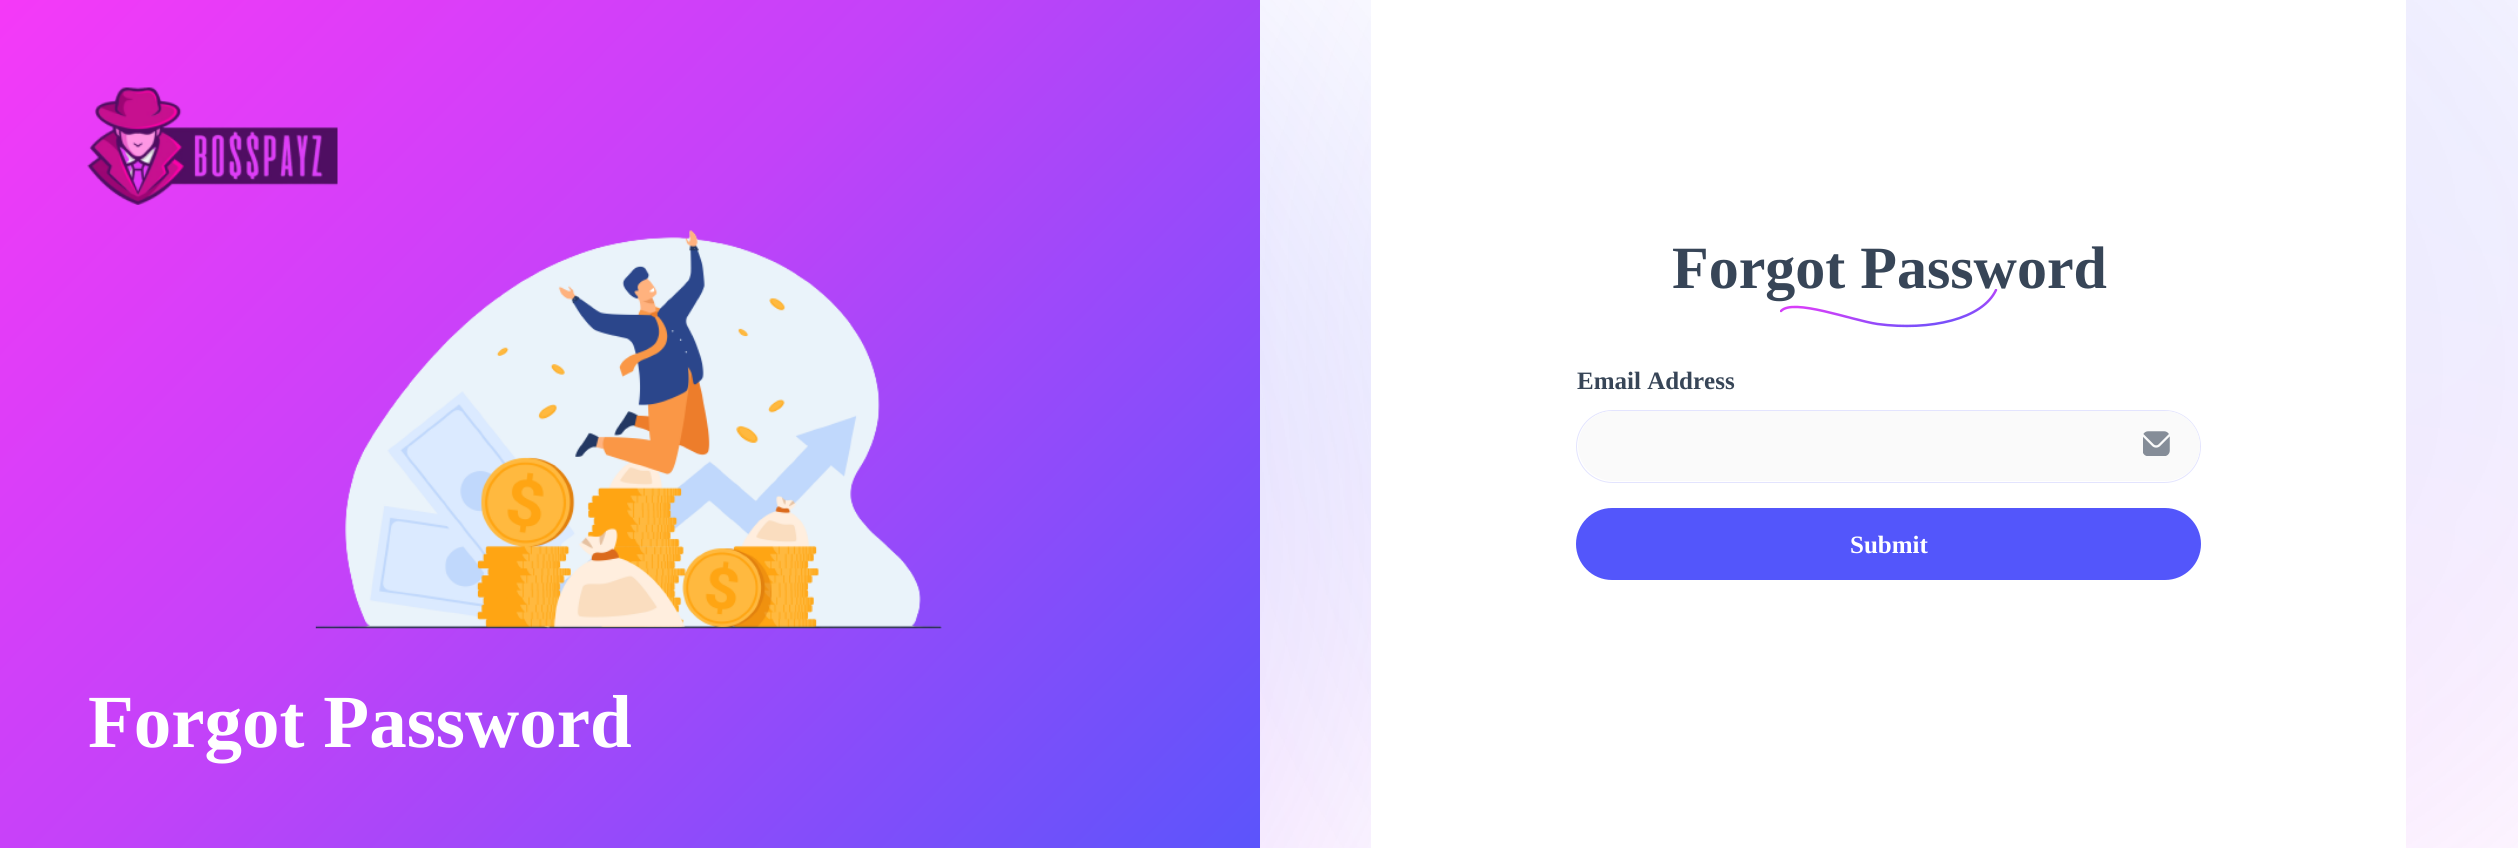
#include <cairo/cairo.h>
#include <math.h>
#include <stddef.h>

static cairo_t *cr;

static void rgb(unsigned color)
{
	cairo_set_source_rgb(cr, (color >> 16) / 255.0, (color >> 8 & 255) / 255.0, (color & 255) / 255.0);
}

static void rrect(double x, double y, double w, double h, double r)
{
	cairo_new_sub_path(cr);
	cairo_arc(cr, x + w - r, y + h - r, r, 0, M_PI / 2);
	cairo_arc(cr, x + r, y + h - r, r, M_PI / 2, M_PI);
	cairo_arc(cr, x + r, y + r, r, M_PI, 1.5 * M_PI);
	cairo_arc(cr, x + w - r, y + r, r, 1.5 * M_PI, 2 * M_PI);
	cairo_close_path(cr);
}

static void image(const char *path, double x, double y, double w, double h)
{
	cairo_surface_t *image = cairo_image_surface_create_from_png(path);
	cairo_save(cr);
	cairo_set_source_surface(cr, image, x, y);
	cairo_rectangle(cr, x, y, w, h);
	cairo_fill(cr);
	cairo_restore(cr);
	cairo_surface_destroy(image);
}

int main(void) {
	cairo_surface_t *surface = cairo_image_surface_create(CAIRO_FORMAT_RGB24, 2518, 848);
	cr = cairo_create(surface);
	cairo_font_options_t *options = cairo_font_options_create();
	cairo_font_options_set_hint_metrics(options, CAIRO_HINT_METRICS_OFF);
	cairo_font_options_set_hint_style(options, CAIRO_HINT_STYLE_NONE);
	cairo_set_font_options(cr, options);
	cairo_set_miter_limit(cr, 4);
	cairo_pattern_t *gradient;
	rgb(0xffffff);
	cairo_paint(cr);
	image("img/1.png", 1260, 0, 1258, 848);
	rgb(0xffffff);
	cairo_rectangle(cr, 1371, 0, 1035, 848);
	cairo_fill(cr);
	rrect(1576.5, 410.5, 624, 72, 36);
	rgb(0xe3e4fe);
	cairo_set_line_width(cr, 1);
	cairo_stroke(cr);
	rgb(0xfafafa);
	rrect(1578, 411, 622, 70, 35);
	cairo_fill(cr);
	image("img/2.png", 2143, 431, 27, 25);
	rgb(0x5356fb);
	rrect(1576, 508, 625, 72, 36);
	cairo_fill(cr);
	gradient = cairo_pattern_create_linear(96, -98, 1212, 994);
	cairo_pattern_add_color_stop_rgba(gradient, 0, 0.961, 0.224, 0.973, 1);
	cairo_pattern_add_color_stop_rgba(gradient, 0.42, 0.765, 0.259, 0.976, 1);
	cairo_pattern_add_color_stop_rgba(gradient, 1, 0.325, 0.337, 0.984, 1);
	cairo_set_source(cr, gradient);
	cairo_pattern_destroy(gradient);
	cairo_rectangle(cr, 0, 0, 1260, 848);
	cairo_fill(cr);
	image("img/3.png", 87, 87, 251, 118);
	image("img/4.png", 315, 230, 627, 399);
	cairo_select_font_face(cr, "Liberation Serif", CAIRO_FONT_SLANT_NORMAL, CAIRO_FONT_WEIGHT_BOLD);
	cairo_set_font_size(cr, 60);
	rgb(0x374557);
	cairo_move_to(cr, 1672, 288);
	cairo_show_text(cr, "Forgot Password");
	cairo_save(cr);
	cairo_rectangle(cr, 1780, 289, 218, 39);
	cairo_clip(cr);
	cairo_new_path(cr);
	cairo_move_to(cr, 1781, 311);
	cairo_curve_to(cr, 1793, 298, 1851, 320, 1877.5, 324);
	cairo_curve_to(cr, 1930.5, 331, 1982.5, 319, 1996, 290);
	gradient = cairo_pattern_create_linear(1781, 290, 1794, 364);
	cairo_pattern_add_color_stop_rgba(gradient, 0, 0.961, 0.224, 0.973, 1);
	cairo_pattern_add_color_stop_rgba(gradient, 0.42, 0.765, 0.259, 0.976, 1);
	cairo_pattern_add_color_stop_rgba(gradient, 1, 0.325, 0.337, 0.984, 1);
	cairo_set_source(cr, gradient);
	cairo_pattern_destroy(gradient);
	cairo_set_line_width(cr, 2.5);
	cairo_set_line_cap(cr, CAIRO_LINE_CAP_ROUND);
	cairo_stroke(cr);
	cairo_restore(cr);
	cairo_set_font_size(cr, 25);
	cairo_move_to(cr, 1577, 389);
	cairo_show_text(cr, "Email Address");
	rgb(0xffffff);
	cairo_move_to(cr, 1850, 553);
	cairo_show_text(cr, "Submit");
	cairo_set_font_size(cr, 75);
	cairo_move_to(cr, 88, 747);
	cairo_show_text(cr, "Forgot Password");
	cairo_surface_write_to_png(surface, "page.png");
	cairo_font_options_destroy(options);
	cairo_destroy(cr);
	cairo_surface_destroy(surface);
	return 0;
}
